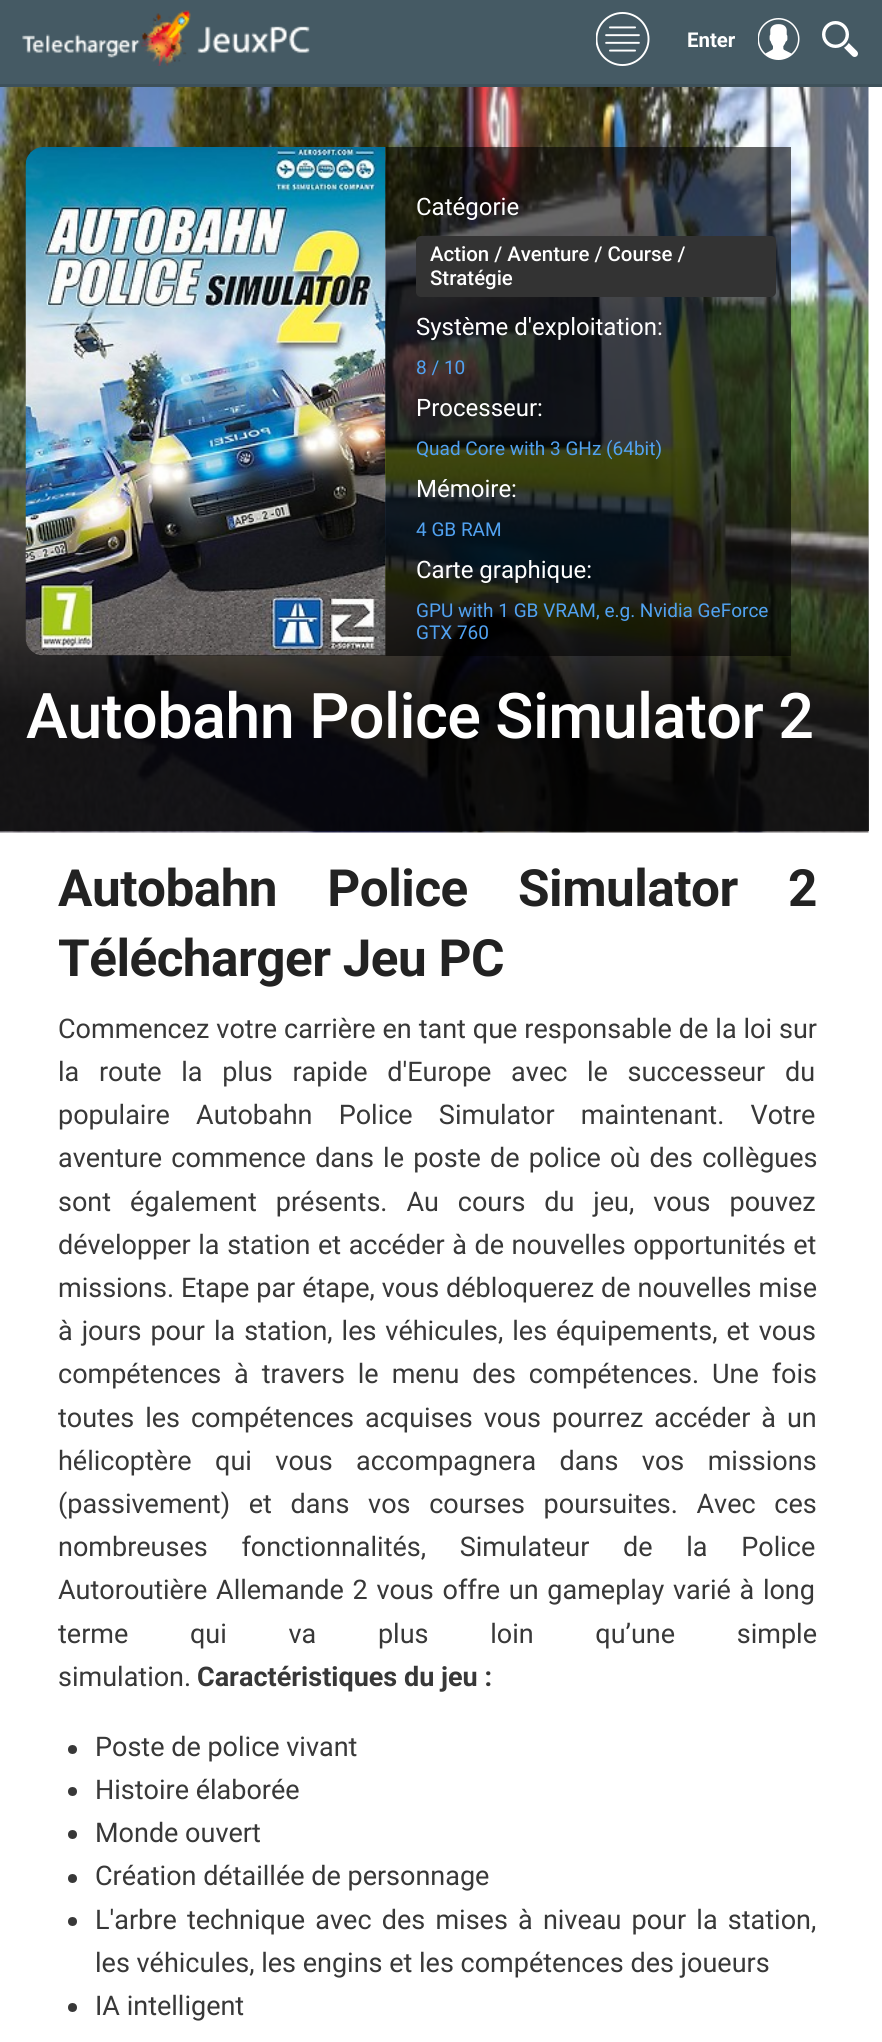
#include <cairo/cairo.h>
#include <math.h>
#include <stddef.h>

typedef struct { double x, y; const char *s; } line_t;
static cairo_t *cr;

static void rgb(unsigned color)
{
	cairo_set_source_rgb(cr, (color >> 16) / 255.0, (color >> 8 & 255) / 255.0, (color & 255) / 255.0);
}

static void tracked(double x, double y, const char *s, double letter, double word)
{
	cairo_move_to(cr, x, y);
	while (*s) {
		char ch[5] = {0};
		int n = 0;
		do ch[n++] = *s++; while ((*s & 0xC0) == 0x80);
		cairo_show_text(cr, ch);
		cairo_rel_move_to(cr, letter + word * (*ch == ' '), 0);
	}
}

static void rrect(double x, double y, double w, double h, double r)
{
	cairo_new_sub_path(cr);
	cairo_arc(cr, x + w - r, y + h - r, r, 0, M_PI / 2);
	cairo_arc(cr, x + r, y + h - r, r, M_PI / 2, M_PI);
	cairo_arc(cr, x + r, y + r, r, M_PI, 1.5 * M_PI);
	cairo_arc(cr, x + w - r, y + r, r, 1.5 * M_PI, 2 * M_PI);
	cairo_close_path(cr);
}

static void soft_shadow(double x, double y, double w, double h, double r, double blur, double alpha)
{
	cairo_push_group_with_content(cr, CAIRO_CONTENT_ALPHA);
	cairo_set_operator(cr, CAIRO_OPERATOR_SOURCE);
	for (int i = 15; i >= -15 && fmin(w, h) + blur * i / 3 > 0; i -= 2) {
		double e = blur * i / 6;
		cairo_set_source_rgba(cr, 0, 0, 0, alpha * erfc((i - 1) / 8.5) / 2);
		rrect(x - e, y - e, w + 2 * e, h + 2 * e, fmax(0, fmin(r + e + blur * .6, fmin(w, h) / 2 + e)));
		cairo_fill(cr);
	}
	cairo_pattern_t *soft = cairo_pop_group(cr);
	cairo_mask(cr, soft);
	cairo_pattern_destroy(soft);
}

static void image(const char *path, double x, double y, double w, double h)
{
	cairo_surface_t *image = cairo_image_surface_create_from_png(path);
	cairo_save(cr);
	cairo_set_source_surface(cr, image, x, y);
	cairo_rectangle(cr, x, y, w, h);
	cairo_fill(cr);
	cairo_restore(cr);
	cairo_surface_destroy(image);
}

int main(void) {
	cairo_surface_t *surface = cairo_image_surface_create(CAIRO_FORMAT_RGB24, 882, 2042);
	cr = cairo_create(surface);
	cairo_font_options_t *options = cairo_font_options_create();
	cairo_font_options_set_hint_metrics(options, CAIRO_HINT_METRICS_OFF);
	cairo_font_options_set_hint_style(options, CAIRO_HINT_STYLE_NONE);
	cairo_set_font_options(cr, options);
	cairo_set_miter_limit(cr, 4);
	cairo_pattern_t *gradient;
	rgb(0xffffff);
	cairo_paint(cr);
	rgb(0x455a64);
	cairo_rectangle(cr, 0, 0, 882, 84);
	cairo_fill(cr);
	rgb(0x3d5059);
	cairo_rectangle(cr, 0, 84, 882, 3);
	cairo_fill(cr);
	image("img/1.png", 22, 10, 288, 56);
	image("img/2.png", 596, 12, 54, 54);
	image("img/3.png", 758, 18, 42, 42);
	image("img/4.png", 822, 21, 36, 36);
	image("img/5.png", 0, 87, 869, 746);
	gradient = cairo_pattern_create_linear(434, 441, 434, 831);
	cairo_pattern_add_color_stop_rgba(gradient, 0, 0, 0, 0, 0);
	cairo_pattern_add_color_stop_rgba(gradient, 0.7, 0, 0, 0, 0.8);
	cairo_set_source(cr, gradient);
	cairo_pattern_destroy(gradient);
	cairo_rectangle(cr, 0, 448, 869, 383);
	cairo_fill(cr);
	cairo_set_source_rgba(cr, 0.004, 0.004, 0.004, 0.6);
	cairo_rectangle(cr, 386, 147, 405, 509);
	cairo_fill(cr);
	cairo_save(cr);
	cairo_rectangle(cr, 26, 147, 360, 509);
	cairo_clip(cr);
	rgb(0x000000);
	soft_shadow(41, 162, 360, 509, 18, 4, 0.41);
	cairo_restore(cr);
	image("img/6.png", 25, 147, 361, 509);
	rgb(0x333333);
	rrect(416, 236, 360, 61, 5);
	cairo_fill(cr);
	rgb(0x383838);
	cairo_arc(cr, 72.5, 1749.5, 4.5, 0, 2 * M_PI);
	cairo_fill(cr);
	cairo_arc(cr, 72.5, 1791.5, 4.5, 0, 2 * M_PI);
	cairo_fill(cr);
	cairo_arc(cr, 72.5, 1834.5, 4.5, 0, 2 * M_PI);
	cairo_fill(cr);
	cairo_arc(cr, 72.5, 1878.5, 4.5, 0, 2 * M_PI);
	cairo_fill(cr);
	cairo_arc(cr, 72.5, 1921.5, 4.5, 0, 2 * M_PI);
	cairo_fill(cr);
	cairo_arc(cr, 72.5, 2007.5, 4.5, 0, 2 * M_PI);
	cairo_fill(cr);
	cairo_select_font_face(cr, "Roboto", CAIRO_FONT_SLANT_NORMAL, CAIRO_FONT_WEIGHT_BOLD);
	cairo_set_font_size(cr, 20.4);
	rgb(0xffffff);
	cairo_move_to(cr, 687, 47);
	cairo_show_text(cr, "Enter");
	cairo_select_font_face(cr, "Roboto", CAIRO_FONT_SLANT_NORMAL, CAIRO_FONT_WEIGHT_NORMAL);
	cairo_set_font_size(cr, 24);
	cairo_move_to(cr, 416, 215);
	cairo_show_text(cr, "Catégorie");
	cairo_select_font_face(cr, "Roboto Medium", CAIRO_FONT_SLANT_NORMAL, CAIRO_FONT_WEIGHT_NORMAL);
	cairo_set_font_size(cr, 20.4);
	cairo_move_to(cr, 430, 261);
	cairo_show_text(cr, "Action / Aventure / Course /");
	cairo_move_to(cr, 430, 285);
	cairo_show_text(cr, "Stratégie");
	cairo_select_font_face(cr, "Roboto", CAIRO_FONT_SLANT_NORMAL, CAIRO_FONT_WEIGHT_NORMAL);
	cairo_set_font_size(cr, 24);
	cairo_move_to(cr, 416, 335);
	cairo_show_text(cr, "Système d'exploitation:");
	cairo_set_font_size(cr, 19);
	rgb(0x51a2f1);
	cairo_move_to(cr, 416, 374);
	cairo_show_text(cr, "8 / 10");
	cairo_set_font_size(cr, 24);
	rgb(0xffffff);
	cairo_move_to(cr, 416, 416);
	cairo_show_text(cr, "Processeur:");
	cairo_set_font_size(cr, 19);
	rgb(0x51a2f1);
	cairo_move_to(cr, 416, 455);
	cairo_show_text(cr, "Quad Core with 3 GHz (64bit)");
	cairo_set_font_size(cr, 24);
	rgb(0xffffff);
	cairo_move_to(cr, 416, 497);
	cairo_show_text(cr, "Mémoire:");
	cairo_set_font_size(cr, 19);
	rgb(0x51a2f1);
	cairo_move_to(cr, 416, 536);
	cairo_show_text(cr, "4 GB RAM");
	cairo_set_font_size(cr, 24);
	rgb(0xffffff);
	cairo_move_to(cr, 416, 578);
	cairo_show_text(cr, "Carte graphique:");
	cairo_set_font_size(cr, 19);
	rgb(0x51a2f1);
	cairo_move_to(cr, 416, 617);
	cairo_show_text(cr, "GPU with 1 GB VRAM, e.g. Nvidia GeForce");
	cairo_move_to(cr, 416, 639);
	cairo_show_text(cr, "GTX 760");
	cairo_select_font_face(cr, "Roboto Medium", CAIRO_FONT_SLANT_NORMAL, CAIRO_FONT_WEIGHT_NORMAL);
	cairo_set_font_size(cr, 63);
	rgb(0xffffff);
	tracked(26, 738, "Autobahn Police Simulator 2", -0.6, 0);
	cairo_select_font_face(cr, "Roboto", CAIRO_FONT_SLANT_NORMAL, CAIRO_FONT_WEIGHT_BOLD);
	cairo_set_font_size(cr, 51.25);
	rgb(0x222222);
	tracked(58, 906, "Autobahn Police Simulator 2", -0.5, 38);
	tracked(58, 976, "Télécharger Jeu PC", -0.5, 0);
	cairo_select_font_face(cr, "Roboto", CAIRO_FONT_SLANT_NORMAL, CAIRO_FONT_WEIGHT_NORMAL);
	cairo_set_font_size(cr, 27);
	rgb(0x383838);
	tracked(58, 1038, "Commencez votre carrière en tant que responsable de la loi sur", 0, 0.25);
	tracked(58, 1081, "la route la plus rapide d'Europe avec le successeur du", 0, 13);
	tracked(58, 1124, "populaire Autobahn Police Simulator maintenant. Votre", 0, 19.5);
	tracked(58, 1167, "aventure commence dans le poste de police où des collègues", 0, 2.5);
	tracked(58, 1211, "sont également présents. Au cours du jeu, vous pouvez", 0, 12.25);
	tracked(58, 1254, "développer la station et accéder à de nouvelles opportunités et", 0, 0.9);
	tracked(58, 1297, "missions. Etape par étape, vous débloquerez de nouvelles mise", 0, 0.25);
	tracked(58, 1340, "à jours pour la station, les véhicules, les équipements, et vous", 0, 2.25);
	tracked(58, 1383, "compétences à travers le menu des compétences. Une fois", 0, 6.25);
	tracked(58, 1427, "toutes les compétences acquises vous pourrez accéder à un", 0, 4.25);
	tracked(58, 1470, "hélicoptère qui vous accompagnera dans vos missions", 0, 16.75);
	tracked(58, 1513, "(passivement) et dans vos courses poursuites. Avec ces", 0, 12);
	tracked(58, 1556, "nombreuses fonctionnalités, Simulateur de la Police", 0, 27);
	tracked(58, 1599, "Autoroutière Allemande 2 vous offre un gameplay varié à long", 0, 2);
	tracked(58, 1643, "terme qui va plus loin qu’une simple", 0, 55);
	cairo_move_to(cr, 58, 1686);
	cairo_show_text(cr, "simulation.");
	cairo_select_font_face(cr, "Roboto", CAIRO_FONT_SLANT_NORMAL, CAIRO_FONT_WEIGHT_BOLD);
	cairo_move_to(cr, 197, 1686);
	cairo_show_text(cr, "Caractéristiques du jeu :");
	cairo_select_font_face(cr, "Roboto", CAIRO_FONT_SLANT_NORMAL, CAIRO_FONT_WEIGHT_NORMAL);
	{
		static const line_t items[] = {
			{95, 1756, "Poste de police vivant"},
			{95, 1799, "Histoire élaborée"},
			{95, 1842, "Monde ouvert"},
			{95, 1885, "Création détaillée de personnage"},
		};
		for (size_t i = 0; i < sizeof items / sizeof *items; i++) {
			cairo_move_to(cr, items[i].x, items[i].y);
			cairo_show_text(cr, items[i].s);
		}
	}
	tracked(95, 1929, "L'arbre technique avec des mises à niveau pour la station,", 0, 3.5);
	cairo_move_to(cr, 95, 1972);
	cairo_show_text(cr, "les véhicules, les engins et les compétences des joueurs");
	cairo_move_to(cr, 95, 2015);
	cairo_show_text(cr, "IA intelligent");
	cairo_surface_write_to_png(surface, "page.png");
	cairo_font_options_destroy(options);
	cairo_destroy(cr);
	cairo_surface_destroy(surface);
	return 0;
}
